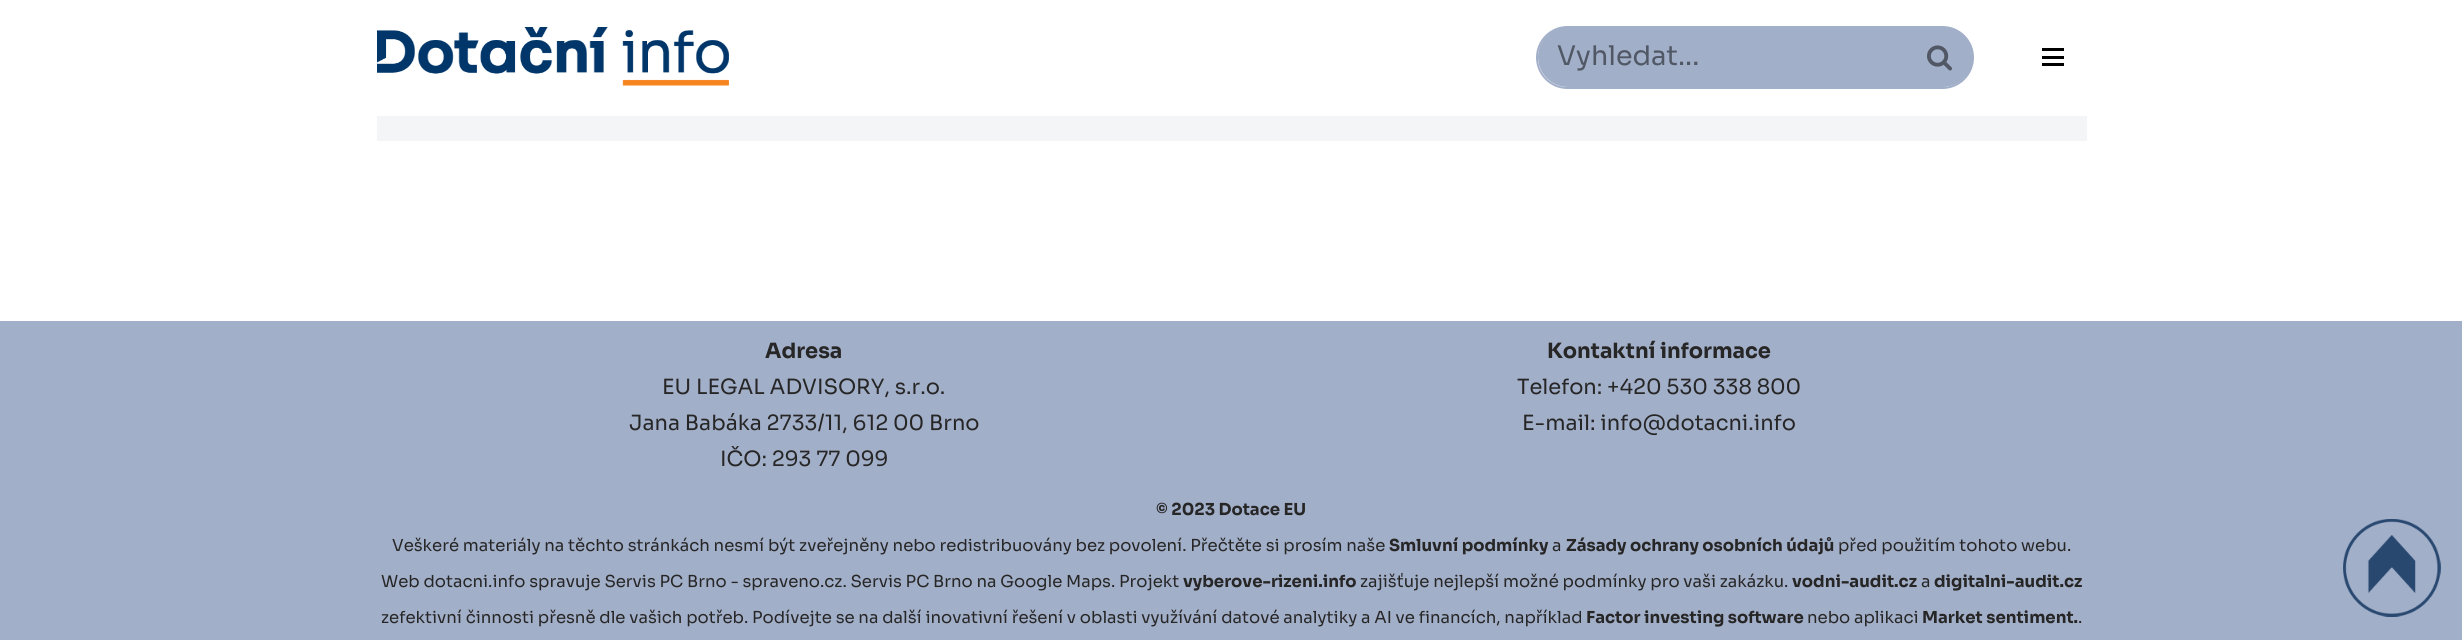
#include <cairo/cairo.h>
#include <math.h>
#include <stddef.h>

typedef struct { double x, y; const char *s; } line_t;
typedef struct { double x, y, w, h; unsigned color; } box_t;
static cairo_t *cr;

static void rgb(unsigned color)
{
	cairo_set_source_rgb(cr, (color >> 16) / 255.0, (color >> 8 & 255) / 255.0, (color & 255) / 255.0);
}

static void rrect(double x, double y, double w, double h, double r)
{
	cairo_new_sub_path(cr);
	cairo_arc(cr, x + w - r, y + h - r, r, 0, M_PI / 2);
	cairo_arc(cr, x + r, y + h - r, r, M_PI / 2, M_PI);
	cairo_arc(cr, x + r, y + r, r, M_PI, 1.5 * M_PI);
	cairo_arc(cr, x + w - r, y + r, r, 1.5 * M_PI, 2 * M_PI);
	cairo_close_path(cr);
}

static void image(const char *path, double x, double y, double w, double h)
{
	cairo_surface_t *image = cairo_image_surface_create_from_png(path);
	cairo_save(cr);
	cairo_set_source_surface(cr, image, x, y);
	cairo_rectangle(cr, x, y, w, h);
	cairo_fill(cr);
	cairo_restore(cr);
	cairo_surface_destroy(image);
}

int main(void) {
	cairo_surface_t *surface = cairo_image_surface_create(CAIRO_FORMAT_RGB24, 2462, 640);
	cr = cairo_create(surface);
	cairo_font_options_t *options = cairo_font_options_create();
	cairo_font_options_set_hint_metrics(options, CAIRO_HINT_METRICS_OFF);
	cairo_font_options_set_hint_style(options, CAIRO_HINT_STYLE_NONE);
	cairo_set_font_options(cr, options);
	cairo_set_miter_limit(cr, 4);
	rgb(0xffffff);
	cairo_paint(cr);
	image("img/1.png", 377, 27, 352, 59);
	rrect(1537, 27, 436, 61, 30.5);
	rgb(0xa2afc9);
	cairo_stroke(cr);
	cairo_new_path(cr);
	cairo_move_to(cr, 1568, 28);
	cairo_line_to(cr, 1904, 28);
	cairo_line_to(cr, 1904, 86);
	cairo_line_to(cr, 1568, 86);
	cairo_curve_to(cr, 1552, 86, 1539, 73, 1539, 57);
	cairo_curve_to(cr, 1539, 41, 1552, 28, 1568, 28);
	cairo_close_path(cr);
	cairo_fill_preserve(cr);
	cairo_stroke(cr);
	cairo_new_path(cr);
	cairo_move_to(cr, 1906, 28);
	cairo_line_to(cr, 1943, 28);
	cairo_curve_to(cr, 1959, 28, 1972, 41, 1972, 57);
	cairo_curve_to(cr, 1972, 73, 1959, 86, 1943, 86);
	cairo_line_to(cr, 1906, 86);
	cairo_close_path(cr);
	cairo_fill_preserve(cr);
	cairo_stroke(cr);
	image("img/2.png", 1927, 45, 25, 26);
	{
		static const box_t items[] = {
			{2042, 48, 22, 3, 0x000000},
			{2042, 56, 22, 3, 0x000000},
			{2042, 63, 22, 3, 0x000000},
			{377, 116, 1710, 25, 0xf4f5f7},
			{0, 321, 2462, 319, 0xa2afc9},
		};
		for (size_t i = 0; i < sizeof items / sizeof *items; i++) {
			rgb(items[i].color);
			cairo_rectangle(cr, items[i].x, items[i].y, items[i].w, items[i].h);
			cairo_fill(cr);
		}
	}
	image("img/3.png", 2343, 519, 98, 98);
	cairo_select_font_face(cr, "Sora", CAIRO_FONT_SLANT_NORMAL, CAIRO_FONT_WEIGHT_NORMAL);
	cairo_set_font_size(cr, 27);
	rgb(0x515865);
	cairo_move_to(cr, 1557, 65);
	cairo_show_text(cr, "Vyhledat...");
	cairo_select_font_face(cr, "Sora", CAIRO_FONT_SLANT_NORMAL, CAIRO_FONT_WEIGHT_BOLD);
	cairo_set_font_size(cr, 21);
	rgb(0x272626);
	cairo_move_to(cr, 765, 358);
	cairo_show_text(cr, "Adresa");
	cairo_select_font_face(cr, "Sora", CAIRO_FONT_SLANT_NORMAL, CAIRO_FONT_WEIGHT_NORMAL);
	{
		static const line_t items[] = {
			{662, 394, "EU LEGAL ADVISORY, s.r.o."},
			{629, 430, "Jana Babáka 2733/11, 612 00 Brno"},
			{720, 466, "IČO: 293 77 099"},
		};
		for (size_t i = 0; i < sizeof items / sizeof *items; i++) {
			cairo_move_to(cr, items[i].x, items[i].y);
			cairo_show_text(cr, items[i].s);
		}
	}
	cairo_select_font_face(cr, "Sora", CAIRO_FONT_SLANT_NORMAL, CAIRO_FONT_WEIGHT_BOLD);
	cairo_move_to(cr, 1547, 358);
	cairo_show_text(cr, "Kontaktní informace");
	cairo_select_font_face(cr, "Sora", CAIRO_FONT_SLANT_NORMAL, CAIRO_FONT_WEIGHT_NORMAL);
	cairo_move_to(cr, 1517, 394);
	cairo_show_text(cr, "Telefon: +420 530 338 800");
	cairo_move_to(cr, 1522, 430);
	cairo_show_text(cr, "E-mail: info@dotacni.info");
	cairo_select_font_face(cr, "Sora", CAIRO_FONT_SLANT_NORMAL, CAIRO_FONT_WEIGHT_BOLD);
	cairo_set_font_size(cr, 16.5);
	cairo_move_to(cr, 1156, 515);
	cairo_show_text(cr, "© 2023 Dotace EU");
	cairo_select_font_face(cr, "Sora", CAIRO_FONT_SLANT_NORMAL, CAIRO_FONT_WEIGHT_NORMAL);
	cairo_move_to(cr, 392, 551);
	cairo_show_text(cr, "Veškeré materiály na těchto stránkách nesmí být zveřejněny nebo redistribuovány bez povolení. Přečtěte si prosím naše");
	cairo_select_font_face(cr, "Sora", CAIRO_FONT_SLANT_NORMAL, CAIRO_FONT_WEIGHT_BOLD);
	cairo_move_to(cr, 1389, 551);
	cairo_show_text(cr, "Smluvní podmínky");
	cairo_select_font_face(cr, "Sora", CAIRO_FONT_SLANT_NORMAL, CAIRO_FONT_WEIGHT_NORMAL);
	cairo_move_to(cr, 1552, 551);
	cairo_show_text(cr, "a");
	cairo_select_font_face(cr, "Sora", CAIRO_FONT_SLANT_NORMAL, CAIRO_FONT_WEIGHT_BOLD);
	cairo_move_to(cr, 1566, 551);
	cairo_show_text(cr, "Zásady ochrany osobních údajů");
	cairo_select_font_face(cr, "Sora", CAIRO_FONT_SLANT_NORMAL, CAIRO_FONT_WEIGHT_NORMAL);
	cairo_move_to(cr, 1838, 551);
	cairo_show_text(cr, "před použitím tohoto webu.");
	cairo_move_to(cr, 381, 587);
	cairo_show_text(cr, "Web dotacni.info spravuje Servis PC Brno - spraveno.cz. Servis PC Brno na Google Maps. Projekt");
	cairo_select_font_face(cr, "Sora", CAIRO_FONT_SLANT_NORMAL, CAIRO_FONT_WEIGHT_BOLD);
	cairo_move_to(cr, 1183, 587);
	cairo_show_text(cr, "vyberove-rizeni.info");
	cairo_select_font_face(cr, "Sora", CAIRO_FONT_SLANT_NORMAL, CAIRO_FONT_WEIGHT_NORMAL);
	cairo_move_to(cr, 1360, 587);
	cairo_show_text(cr, "zajišťuje nejlepší možné podmínky pro vaši zakázku.");
	cairo_select_font_face(cr, "Sora", CAIRO_FONT_SLANT_NORMAL, CAIRO_FONT_WEIGHT_BOLD);
	cairo_move_to(cr, 1792, 587);
	cairo_show_text(cr, "vodni-audit.cz");
	cairo_select_font_face(cr, "Sora", CAIRO_FONT_SLANT_NORMAL, CAIRO_FONT_WEIGHT_NORMAL);
	cairo_move_to(cr, 1921, 587);
	cairo_show_text(cr, "a");
	cairo_select_font_face(cr, "Sora", CAIRO_FONT_SLANT_NORMAL, CAIRO_FONT_WEIGHT_BOLD);
	cairo_move_to(cr, 1934, 587);
	cairo_show_text(cr, "digitalni-audit.cz");
	cairo_select_font_face(cr, "Sora", CAIRO_FONT_SLANT_NORMAL, CAIRO_FONT_WEIGHT_NORMAL);
	cairo_move_to(cr, 381, 623);
	cairo_show_text(cr, "zefektivní činnosti přesně dle vašich potřeb. Podívejte se na další inovativní řešení v oblasti využívání datové analytiky a AI ve financích, například");
	cairo_select_font_face(cr, "Sora", CAIRO_FONT_SLANT_NORMAL, CAIRO_FONT_WEIGHT_BOLD);
	cairo_move_to(cr, 1586, 623);
	cairo_show_text(cr, "Factor investing software");
	cairo_select_font_face(cr, "Sora", CAIRO_FONT_SLANT_NORMAL, CAIRO_FONT_WEIGHT_NORMAL);
	cairo_move_to(cr, 1807, 623);
	cairo_show_text(cr, "nebo aplikaci");
	cairo_select_font_face(cr, "Sora", CAIRO_FONT_SLANT_NORMAL, CAIRO_FONT_WEIGHT_BOLD);
	cairo_move_to(cr, 1922, 623);
	cairo_show_text(cr, "Market sentiment.");
	cairo_select_font_face(cr, "Sora", CAIRO_FONT_SLANT_NORMAL, CAIRO_FONT_WEIGHT_NORMAL);
	cairo_move_to(cr, 2078, 623);
	cairo_show_text(cr, ".");
	cairo_surface_write_to_png(surface, "page.png");
	cairo_font_options_destroy(options);
	cairo_destroy(cr);
	cairo_surface_destroy(surface);
	return 0;
}
